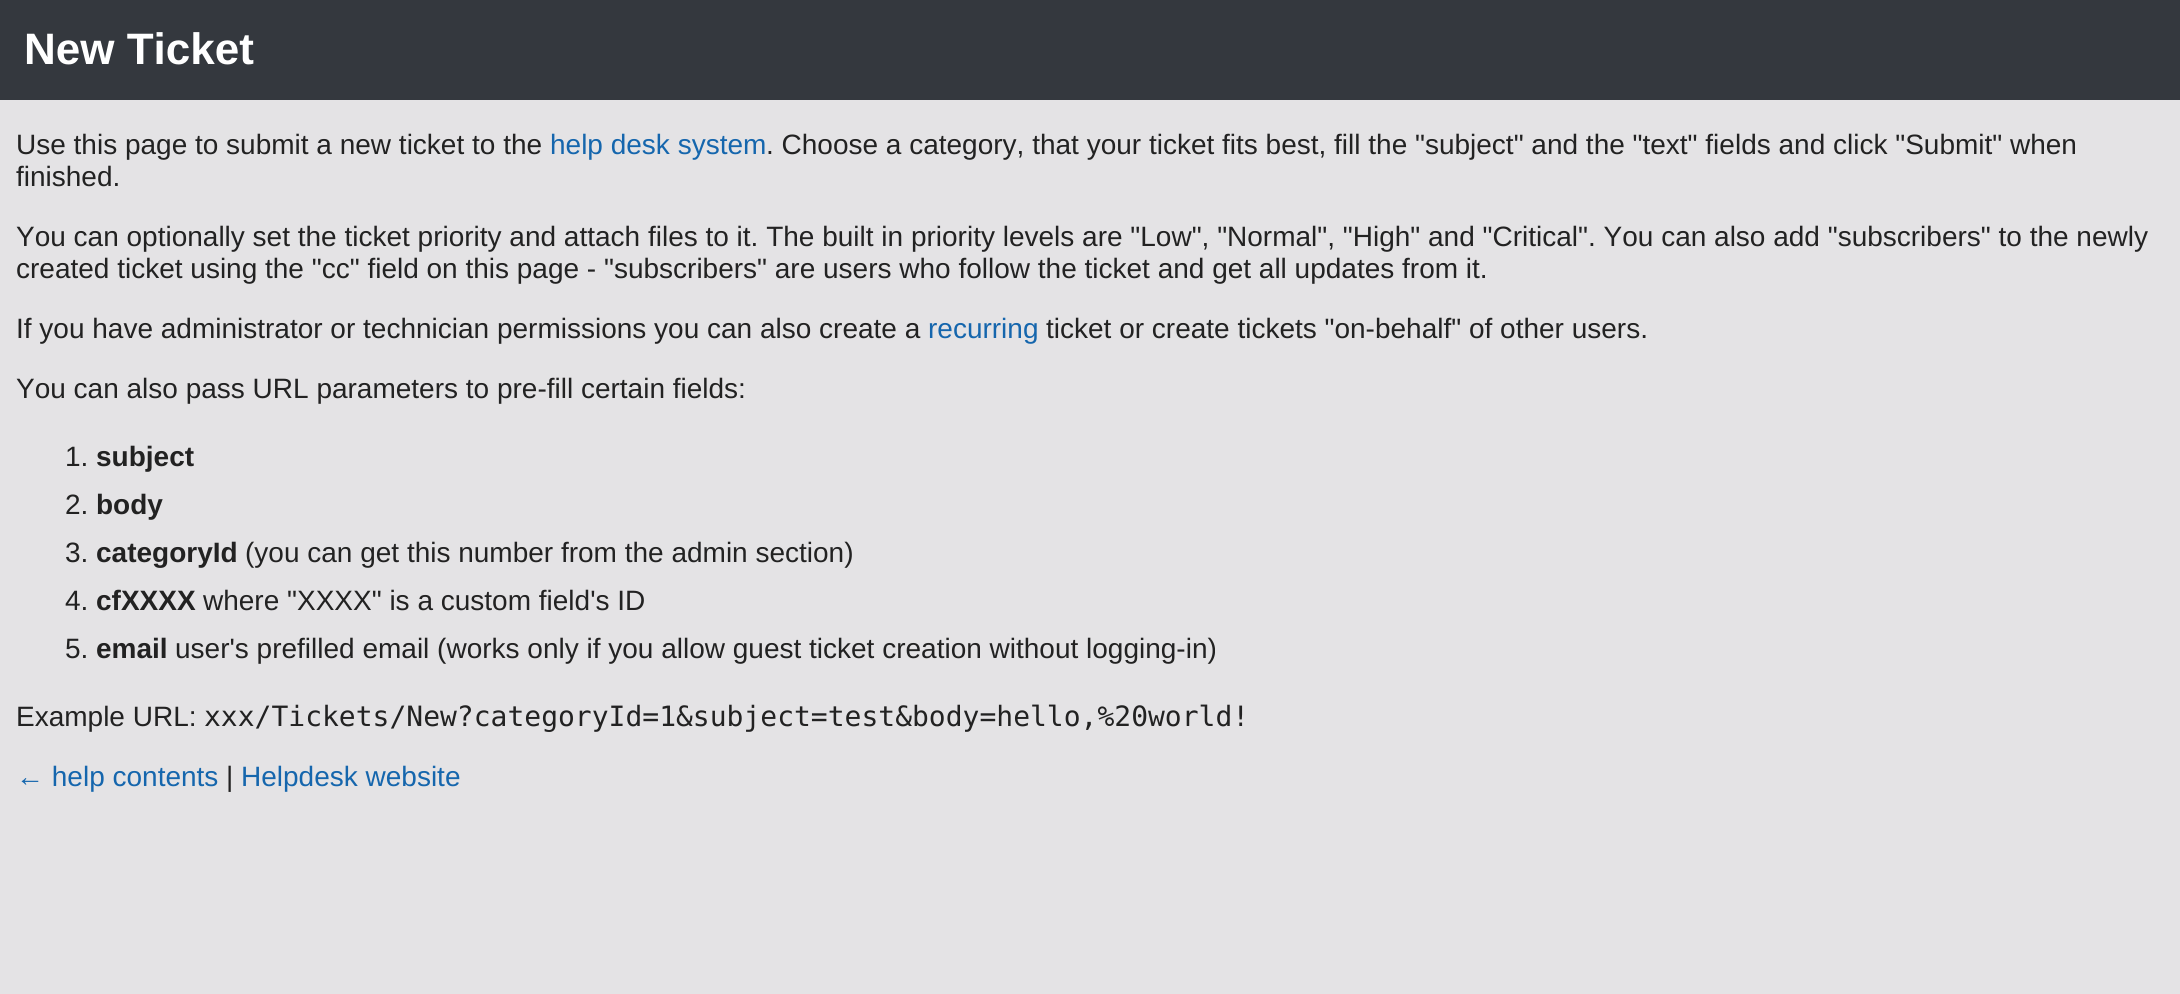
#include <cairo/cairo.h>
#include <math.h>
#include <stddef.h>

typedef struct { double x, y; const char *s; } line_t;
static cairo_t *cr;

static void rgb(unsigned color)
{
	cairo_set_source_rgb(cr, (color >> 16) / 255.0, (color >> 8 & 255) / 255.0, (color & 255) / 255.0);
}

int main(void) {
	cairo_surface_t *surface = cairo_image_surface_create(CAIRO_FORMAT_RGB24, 2180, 994);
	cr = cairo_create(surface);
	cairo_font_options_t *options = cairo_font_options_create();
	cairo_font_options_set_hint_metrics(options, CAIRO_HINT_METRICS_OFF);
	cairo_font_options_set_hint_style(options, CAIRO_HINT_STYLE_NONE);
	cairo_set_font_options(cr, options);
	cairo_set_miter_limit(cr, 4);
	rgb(0xe4e3e5);
	cairo_paint(cr);
	rgb(0x34383e);
	cairo_rectangle(cr, 0, 0, 2180, 100);
	cairo_fill(cr);
	cairo_select_font_face(cr, "Liberation Sans", CAIRO_FONT_SLANT_NORMAL, CAIRO_FONT_WEIGHT_BOLD);
	cairo_set_font_size(cr, 44);
	rgb(0xffffff);
	cairo_move_to(cr, 24, 64);
	cairo_show_text(cr, "New Ticket");
	cairo_select_font_face(cr, "Liberation Sans", CAIRO_FONT_SLANT_NORMAL, CAIRO_FONT_WEIGHT_NORMAL);
	cairo_set_font_size(cr, 28);
	rgb(0x222222);
	cairo_move_to(cr, 16, 154);
	cairo_show_text(cr, "Use this page to submit a new ticket to the");
	rgb(0x1566ad);
	cairo_move_to(cr, 550, 154);
	cairo_show_text(cr, "help desk system");
	rgb(0x222222);
	{
		static const line_t items[] = {
			{766, 154, ". Choose a category, that your ticket fits best, fill the \"subject\" and the \"text\" fields and click \"Submit\" when"},
			{16, 186, "finished."},
			{16, 246, "You can optionally set the ticket priority and attach files to it. The built in priority levels are \"Low\", \"Normal\", \"High\" and \"Critical\". You can also add \"subscribers\" to the newly"},
			{16, 278, "created ticket using the \"cc\" field on this page - \"subscribers\" are users who follow the ticket and get all updates from it."},
			{16, 338, "If you have administrator or technician permissions you can also create a"},
		};
		for (size_t i = 0; i < sizeof items / sizeof *items; i++) {
			cairo_move_to(cr, items[i].x, items[i].y);
			cairo_show_text(cr, items[i].s);
		}
	}
	rgb(0x1566ad);
	cairo_move_to(cr, 928, 338);
	cairo_show_text(cr, "recurring");
	rgb(0x222222);
	{
		static const line_t items[] = {
			{1046, 338, "ticket or create tickets \"on-behalf\" of other users."},
			{16, 398, "You can also pass URL parameters to pre-fill certain fields:"},
			{65, 466, "1."},
		};
		for (size_t i = 0; i < sizeof items / sizeof *items; i++) {
			cairo_move_to(cr, items[i].x, items[i].y);
			cairo_show_text(cr, items[i].s);
		}
	}
	cairo_select_font_face(cr, "Liberation Sans", CAIRO_FONT_SLANT_NORMAL, CAIRO_FONT_WEIGHT_BOLD);
	cairo_move_to(cr, 96, 466);
	cairo_show_text(cr, "subject");
	cairo_select_font_face(cr, "Liberation Sans", CAIRO_FONT_SLANT_NORMAL, CAIRO_FONT_WEIGHT_NORMAL);
	cairo_move_to(cr, 65, 514);
	cairo_show_text(cr, "2.");
	cairo_select_font_face(cr, "Liberation Sans", CAIRO_FONT_SLANT_NORMAL, CAIRO_FONT_WEIGHT_BOLD);
	cairo_move_to(cr, 96, 514);
	cairo_show_text(cr, "body");
	cairo_select_font_face(cr, "Liberation Sans", CAIRO_FONT_SLANT_NORMAL, CAIRO_FONT_WEIGHT_NORMAL);
	cairo_move_to(cr, 65, 562);
	cairo_show_text(cr, "3.");
	cairo_select_font_face(cr, "Liberation Sans", CAIRO_FONT_SLANT_NORMAL, CAIRO_FONT_WEIGHT_BOLD);
	cairo_move_to(cr, 96, 562);
	cairo_show_text(cr, "categoryId");
	cairo_select_font_face(cr, "Liberation Sans", CAIRO_FONT_SLANT_NORMAL, CAIRO_FONT_WEIGHT_NORMAL);
	cairo_move_to(cr, 245, 562);
	cairo_show_text(cr, "(you can get this number from the admin section)");
	cairo_move_to(cr, 65, 610);
	cairo_show_text(cr, "4.");
	cairo_select_font_face(cr, "Liberation Sans", CAIRO_FONT_SLANT_NORMAL, CAIRO_FONT_WEIGHT_BOLD);
	cairo_move_to(cr, 96, 610);
	cairo_show_text(cr, "cfXXXX");
	cairo_select_font_face(cr, "Liberation Sans", CAIRO_FONT_SLANT_NORMAL, CAIRO_FONT_WEIGHT_NORMAL);
	cairo_move_to(cr, 203, 610);
	cairo_show_text(cr, "where \"XXXX\" is a custom field's ID");
	cairo_move_to(cr, 65, 658);
	cairo_show_text(cr, "5.");
	cairo_select_font_face(cr, "Liberation Sans", CAIRO_FONT_SLANT_NORMAL, CAIRO_FONT_WEIGHT_BOLD);
	cairo_move_to(cr, 96, 658);
	cairo_show_text(cr, "email");
	cairo_select_font_face(cr, "Liberation Sans", CAIRO_FONT_SLANT_NORMAL, CAIRO_FONT_WEIGHT_NORMAL);
	cairo_move_to(cr, 175, 658);
	cairo_show_text(cr, "user's prefilled email (works only if you allow guest ticket creation without logging-in)");
	cairo_move_to(cr, 16, 726);
	cairo_show_text(cr, "Example URL:");
	cairo_select_font_face(cr, "DejaVu Sans Mono", CAIRO_FONT_SLANT_NORMAL, CAIRO_FONT_WEIGHT_NORMAL);
	cairo_move_to(cr, 204, 726);
	cairo_show_text(cr, "xxx/Tickets/New?categoryId=1&subject=test&body=hello,%20world!");
	cairo_select_font_face(cr, "Liberation Sans", CAIRO_FONT_SLANT_NORMAL, CAIRO_FONT_WEIGHT_NORMAL);
	rgb(0x1566ad);
	cairo_move_to(cr, 16, 786);
	cairo_show_text(cr, "← help contents");
	rgb(0x222222);
	cairo_move_to(cr, 226, 786);
	cairo_show_text(cr, "|");
	rgb(0x1566ad);
	cairo_move_to(cr, 241, 786);
	cairo_show_text(cr, "Helpdesk website");
	cairo_surface_write_to_png(surface, "page.png");
	cairo_font_options_destroy(options);
	cairo_destroy(cr);
	cairo_surface_destroy(surface);
	return 0;
}
